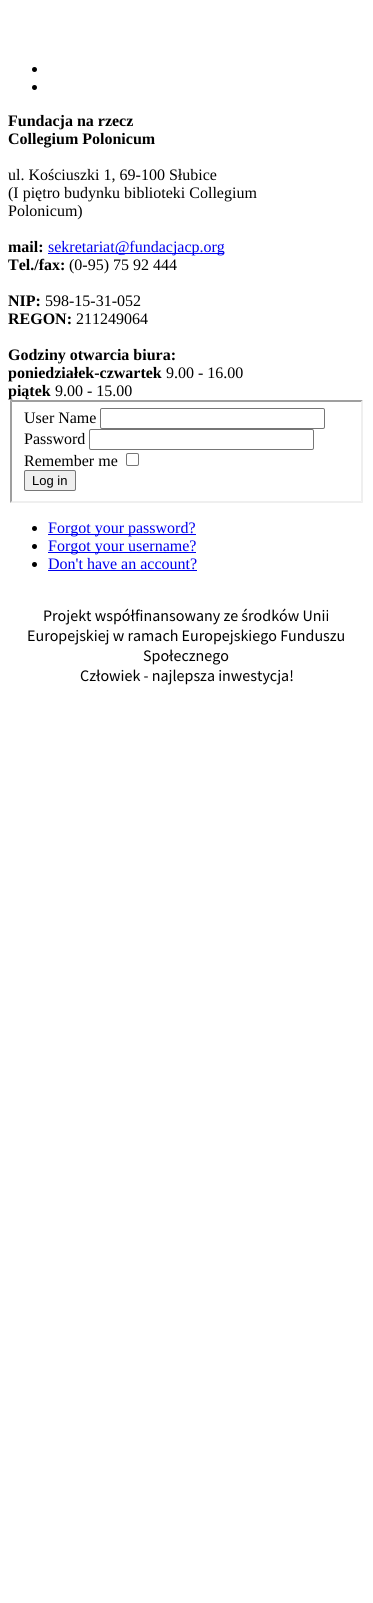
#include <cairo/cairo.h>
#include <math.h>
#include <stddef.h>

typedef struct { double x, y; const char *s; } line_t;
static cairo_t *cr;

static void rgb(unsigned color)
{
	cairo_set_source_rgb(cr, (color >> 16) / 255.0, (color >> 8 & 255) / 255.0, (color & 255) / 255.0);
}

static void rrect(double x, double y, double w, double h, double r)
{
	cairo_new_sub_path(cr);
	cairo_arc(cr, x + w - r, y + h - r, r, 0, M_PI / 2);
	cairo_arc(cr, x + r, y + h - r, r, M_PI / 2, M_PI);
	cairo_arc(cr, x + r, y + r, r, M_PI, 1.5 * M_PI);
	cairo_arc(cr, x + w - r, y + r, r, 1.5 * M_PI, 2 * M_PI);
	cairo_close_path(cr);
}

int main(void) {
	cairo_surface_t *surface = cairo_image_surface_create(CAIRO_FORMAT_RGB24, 373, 1603);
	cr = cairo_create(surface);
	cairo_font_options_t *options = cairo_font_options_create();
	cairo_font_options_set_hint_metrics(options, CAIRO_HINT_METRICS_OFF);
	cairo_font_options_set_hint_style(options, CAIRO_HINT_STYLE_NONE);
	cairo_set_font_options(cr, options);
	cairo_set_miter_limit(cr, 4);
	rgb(0xffffff);
	cairo_paint(cr);
	rgb(0x000000);
	cairo_arc(cr, 34.5, 69.5, 2.5, 0, 2 * M_PI);
	cairo_fill(cr);
	cairo_arc(cr, 34.5, 87.5, 2.5, 0, 2 * M_PI);
	cairo_fill(cr);
	rgb(0x0000ee);
	cairo_rectangle(cr, 48, 253, 176, 1);
	cairo_fill(cr);
	rgb(0x9f9f9f);
	cairo_new_path(cr);
	cairo_move_to(cr, 10, 400);
	cairo_line_to(cr, 363, 400);
	cairo_line_to(cr, 361, 402);
	cairo_line_to(cr, 12, 402);
	cairo_close_path(cr);
	cairo_fill(cr);
	rgb(0xefefef);
	cairo_new_path(cr);
	cairo_move_to(cr, 363, 400);
	cairo_line_to(cr, 363, 503);
	cairo_line_to(cr, 361, 501);
	cairo_line_to(cr, 361, 402);
	cairo_close_path(cr);
	cairo_fill(cr);
	cairo_new_path(cr);
	cairo_move_to(cr, 363, 503);
	cairo_line_to(cr, 10, 503);
	cairo_line_to(cr, 12, 501);
	cairo_line_to(cr, 361, 501);
	cairo_close_path(cr);
	cairo_fill(cr);
	rgb(0x9f9f9f);
	cairo_new_path(cr);
	cairo_move_to(cr, 10, 503);
	cairo_line_to(cr, 10, 400);
	cairo_line_to(cr, 12, 402);
	cairo_line_to(cr, 12, 501);
	cairo_close_path(cr);
	cairo_fill(cr);
	rrect(100.5, 408.5, 224, 20, 1.5);
	rgb(0x767676);
	cairo_set_line_width(cr, 1);
	cairo_stroke(cr);
	rrect(89.5, 429.5, 224, 20, 1.5);
	cairo_stroke(cr);
	rrect(126.5, 453.5, 12, 12, 1.5);
	cairo_stroke(cr);
	rgb(0xefefef);
	rrect(24.5, 470.5, 51, 20, 1.5);
	cairo_fill_preserve(cr);
	rgb(0x767676);
	cairo_stroke(cr);
	rgb(0x000000);
	cairo_arc(cr, 34.5, 528.5, 2.5, 0, 2 * M_PI);
	cairo_fill(cr);
	rgb(0x0000ee);
	cairo_rectangle(cr, 48, 534, 148, 1);
	cairo_fill(cr);
	rgb(0x000000);
	cairo_arc(cr, 34.5, 546.5, 2.5, 0, 2 * M_PI);
	cairo_fill(cr);
	rgb(0x0000ee);
	cairo_rectangle(cr, 48, 552, 148, 1);
	cairo_fill(cr);
	rgb(0x000000);
	cairo_arc(cr, 34.5, 564.5, 2.5, 0, 2 * M_PI);
	cairo_fill(cr);
	rgb(0x0000ee);
	cairo_rectangle(cr, 48, 570, 149, 1);
	cairo_fill(cr);
	cairo_select_font_face(cr, "Liberation Serif", CAIRO_FONT_SLANT_NORMAL, CAIRO_FONT_WEIGHT_BOLD);
	cairo_set_font_size(cr, 16);
	rgb(0x000000);
	cairo_move_to(cr, 8, 126);
	cairo_show_text(cr, "Fundacja na rzecz");
	cairo_move_to(cr, 8, 144);
	cairo_show_text(cr, "Collegium Polonicum");
	cairo_select_font_face(cr, "Liberation Serif", CAIRO_FONT_SLANT_NORMAL, CAIRO_FONT_WEIGHT_NORMAL);
	{
		static const line_t items[] = {
			{8, 180, "ul. Kościuszki 1, 69-100 Słubice"},
			{8, 198, "(I piętro budynku biblioteki Collegium"},
			{8, 216, "Polonicum)"},
		};
		for (size_t i = 0; i < sizeof items / sizeof *items; i++) {
			cairo_move_to(cr, items[i].x, items[i].y);
			cairo_show_text(cr, items[i].s);
		}
	}
	cairo_select_font_face(cr, "Liberation Serif", CAIRO_FONT_SLANT_NORMAL, CAIRO_FONT_WEIGHT_BOLD);
	cairo_move_to(cr, 8, 252);
	cairo_show_text(cr, "mail:");
	cairo_select_font_face(cr, "Liberation Serif", CAIRO_FONT_SLANT_NORMAL, CAIRO_FONT_WEIGHT_NORMAL);
	rgb(0x0000ee);
	cairo_move_to(cr, 48, 252);
	cairo_show_text(cr, "sekretariat@fundacjacp.org");
	cairo_select_font_face(cr, "Liberation Serif", CAIRO_FONT_SLANT_NORMAL, CAIRO_FONT_WEIGHT_BOLD);
	rgb(0x000000);
	cairo_move_to(cr, 8, 270);
	cairo_show_text(cr, "Tel./fax:");
	cairo_select_font_face(cr, "Liberation Serif", CAIRO_FONT_SLANT_NORMAL, CAIRO_FONT_WEIGHT_NORMAL);
	cairo_move_to(cr, 69, 270);
	cairo_show_text(cr, "(0-95) 75 92 444");
	cairo_select_font_face(cr, "Liberation Serif", CAIRO_FONT_SLANT_NORMAL, CAIRO_FONT_WEIGHT_BOLD);
	cairo_move_to(cr, 8, 306);
	cairo_show_text(cr, "NIP:");
	cairo_select_font_face(cr, "Liberation Serif", CAIRO_FONT_SLANT_NORMAL, CAIRO_FONT_WEIGHT_NORMAL);
	cairo_move_to(cr, 45, 306);
	cairo_show_text(cr, "598-15-31-052");
	cairo_select_font_face(cr, "Liberation Serif", CAIRO_FONT_SLANT_NORMAL, CAIRO_FONT_WEIGHT_BOLD);
	cairo_move_to(cr, 8, 324);
	cairo_show_text(cr, "REGON:");
	cairo_select_font_face(cr, "Liberation Serif", CAIRO_FONT_SLANT_NORMAL, CAIRO_FONT_WEIGHT_NORMAL);
	cairo_move_to(cr, 76, 324);
	cairo_show_text(cr, "211249064");
	cairo_select_font_face(cr, "Liberation Serif", CAIRO_FONT_SLANT_NORMAL, CAIRO_FONT_WEIGHT_BOLD);
	cairo_move_to(cr, 8, 360);
	cairo_show_text(cr, "Godziny otwarcia biura:");
	cairo_move_to(cr, 8, 378);
	cairo_show_text(cr, "poniedziałek-czwartek");
	cairo_select_font_face(cr, "Liberation Serif", CAIRO_FONT_SLANT_NORMAL, CAIRO_FONT_WEIGHT_NORMAL);
	cairo_move_to(cr, 166, 378);
	cairo_show_text(cr, "9.00 - 16.00");
	cairo_select_font_face(cr, "Liberation Serif", CAIRO_FONT_SLANT_NORMAL, CAIRO_FONT_WEIGHT_BOLD);
	cairo_move_to(cr, 8, 396);
	cairo_show_text(cr, "piątek");
	cairo_select_font_face(cr, "Liberation Serif", CAIRO_FONT_SLANT_NORMAL, CAIRO_FONT_WEIGHT_NORMAL);
	{
		static const line_t items[] = {
			{55, 396, "9.00 - 15.00"},
			{24, 423, "User Name"},
			{24, 444, "Password"},
			{24, 466, "Remember me"},
		};
		for (size_t i = 0; i < sizeof items / sizeof *items; i++) {
			cairo_move_to(cr, items[i].x, items[i].y);
			cairo_show_text(cr, items[i].s);
		}
	}
	cairo_select_font_face(cr, "Liberation Sans", CAIRO_FONT_SLANT_NORMAL, CAIRO_FONT_WEIGHT_NORMAL);
	cairo_set_font_size(cr, 13);
	cairo_move_to(cr, 32, 485);
	cairo_show_text(cr, "Log in");
	cairo_select_font_face(cr, "Liberation Serif", CAIRO_FONT_SLANT_NORMAL, CAIRO_FONT_WEIGHT_NORMAL);
	cairo_set_font_size(cr, 16);
	rgb(0x0000ee);
	{
		static const line_t items[] = {
			{48, 533, "Forgot your password?"},
			{48, 551, "Forgot your username?"},
			{48, 569, "Don't have an account?"},
		};
		for (size_t i = 0; i < sizeof items / sizeof *items; i++) {
			cairo_move_to(cr, items[i].x, items[i].y);
			cairo_show_text(cr, items[i].s);
		}
	}
	cairo_select_font_face(cr, "Source Sans Pro", CAIRO_FONT_SLANT_NORMAL, CAIRO_FONT_WEIGHT_NORMAL);
	rgb(0x000000);
	{
		static const line_t items[] = {
			{43, 621, "Projekt współfinansowany ze środków Unii"},
			{27, 641, "Europejskiej w ramach Europejskiego Funduszu"},
			{143, 661, "Społecznego"},
			{80, 681, "Człowiek - najlepsza inwestycja!"},
		};
		for (size_t i = 0; i < sizeof items / sizeof *items; i++) {
			cairo_move_to(cr, items[i].x, items[i].y);
			cairo_show_text(cr, items[i].s);
		}
	}
	cairo_surface_write_to_png(surface, "page.png");
	cairo_font_options_destroy(options);
	cairo_destroy(cr);
	cairo_surface_destroy(surface);
	return 0;
}
